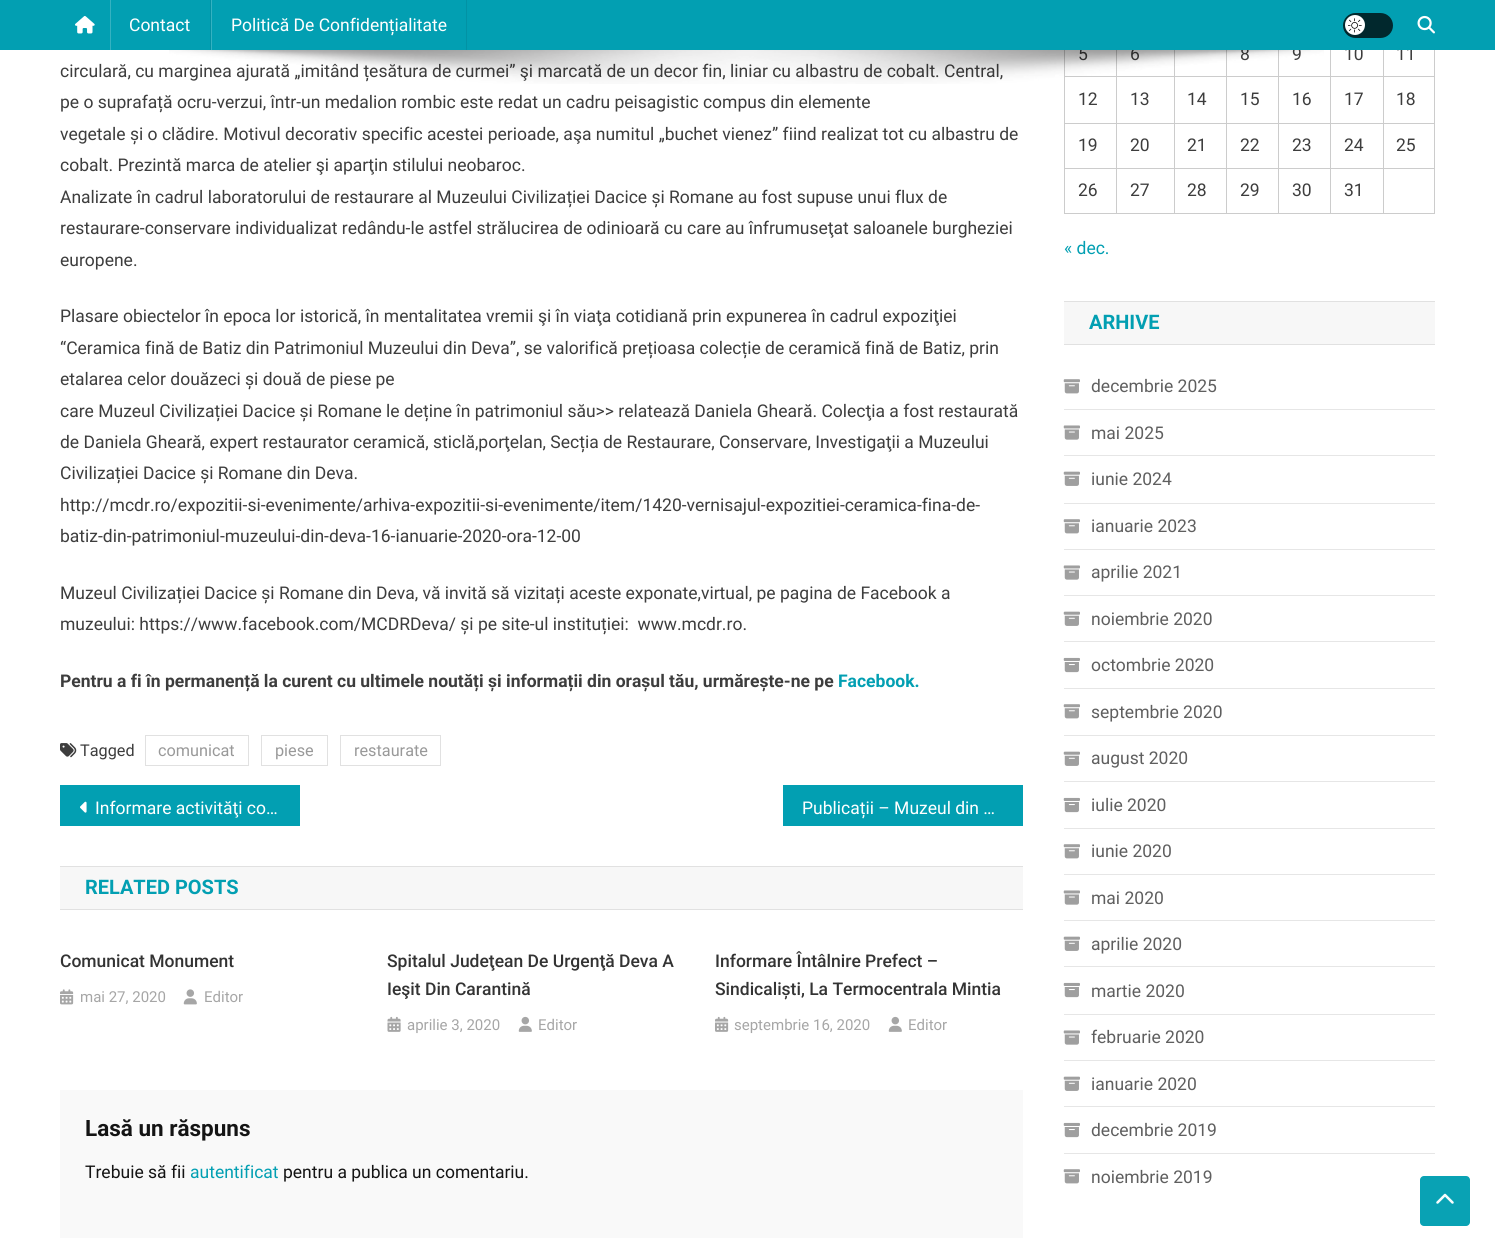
#include <cairo/cairo.h>
#include <math.h>
#include <stddef.h>

typedef struct { double x, y; const char *s; } line_t;
typedef struct { double x, y, w, h; unsigned color; } box_t;
static cairo_t *cr;

static void rgb(unsigned color)
{
	cairo_set_source_rgb(cr, (color >> 16) / 255.0, (color >> 8 & 255) / 255.0, (color & 255) / 255.0);
}

static void rrect(double x, double y, double w, double h, double r)
{
	cairo_new_sub_path(cr);
	cairo_arc(cr, x + w - r, y + h - r, r, 0, M_PI / 2);
	cairo_arc(cr, x + r, y + h - r, r, M_PI / 2, M_PI);
	cairo_arc(cr, x + r, y + r, r, M_PI, 1.5 * M_PI);
	cairo_arc(cr, x + w - r, y + r, r, 1.5 * M_PI, 2 * M_PI);
	cairo_close_path(cr);
}

static void image(const char *path, double x, double y, double w, double h)
{
	cairo_surface_t *image = cairo_image_surface_create_from_png(path);
	cairo_save(cr);
	cairo_set_source_surface(cr, image, x, y);
	cairo_rectangle(cr, x, y, w, h);
	cairo_fill(cr);
	cairo_restore(cr);
	cairo_surface_destroy(image);
}

int main(void) {
	cairo_surface_t *surface = cairo_image_surface_create(CAIRO_FORMAT_RGB24, 1495, 1251);
	cr = cairo_create(surface);
	cairo_font_options_t *options = cairo_font_options_create();
	cairo_font_options_set_hint_metrics(options, CAIRO_HINT_METRICS_OFF);
	cairo_font_options_set_hint_style(options, CAIRO_HINT_STYLE_NONE);
	cairo_set_font_options(cr, options);
	cairo_set_miter_limit(cr, 4);
	rgb(0xffffff);
	cairo_paint(cr);
	image("img/5.png", 60, 743, 17, 15);
	cairo_rectangle(cr, 145.5, 735.5, 103, 30);
	rgb(0xe1e1e1);
	cairo_set_line_width(cr, 1);
	cairo_stroke(cr);
	cairo_rectangle(cr, 261.5, 735.5, 66, 30);
	cairo_stroke(cr);
	cairo_rectangle(cr, 340.5, 735.5, 100, 30);
	cairo_stroke(cr);
	rgb(0x029fb2);
	cairo_rectangle(cr, 60, 785, 240, 41);
	cairo_fill(cr);
	image("img/6.png", 80, 801, 7, 12);
	{
		static const box_t items[] = {
			{783, 785, 240, 41, 0x029fb2},
			{60, 867, 963, 42, 0xf7f7f7},
			{60, 866, 963, 1, 0xe1e1e1},
			{60, 909, 963, 1, 0xe1e1e1},
		};
		for (size_t i = 0; i < sizeof items / sizeof *items; i++) {
			rgb(items[i].color);
			cairo_rectangle(cr, items[i].x, items[i].y, items[i].w, items[i].h);
			cairo_fill(cr);
		}
	}
	image("img/7.png", 60, 989, 14, 16);
	image("img/8.png", 183, 989, 14, 16);
	image("img/9.png", 387, 1016, 14, 16);
	image("img/10.png", 518, 1016, 14, 16);
	image("img/11.png", 715, 1016, 14, 16);
	image("img/10.png", 888, 1016, 14, 16);
	{
		static const box_t items[] = {
			{60, 1090, 963, 148, 0xf9f9f9},
			{1383, 76, 52, 1, 0xcccccc},
			{1383, 123, 52, 1, 0xcccccc},
			{1383, 168, 52, 1, 0xcccccc},
			{1434, 168, 1, 46, 0xcccccc},
			{1383, 213, 52, 1, 0xcccccc},
			{1383, 168, 1, 46, 0xcccccc},
			{1330, 168, 54, 1, 0xcccccc},
			{1383, 123, 1, 46, 0xcccccc},
			{1330, 123, 54, 1, 0xcccccc},
			{1383, 76, 1, 48, 0xcccccc},
			{1330, 76, 54, 1, 0xcccccc},
			{1330, 213, 54, 1, 0xcccccc},
			{1330, 168, 1, 46, 0xcccccc},
			{1278, 168, 53, 1, 0xcccccc},
			{1330, 123, 1, 46, 0xcccccc},
			{1278, 123, 53, 1, 0xcccccc},
			{1330, 76, 1, 48, 0xcccccc},
			{1278, 76, 53, 1, 0xcccccc},
			{1278, 213, 53, 1, 0xcccccc},
			{1278, 168, 1, 46, 0xcccccc},
			{1226, 168, 53, 1, 0xcccccc},
			{1278, 123, 1, 46, 0xcccccc},
			{1226, 123, 53, 1, 0xcccccc},
			{1278, 76, 1, 48, 0xcccccc},
			{1226, 76, 53, 1, 0xcccccc},
			{1226, 213, 53, 1, 0xcccccc},
			{1226, 168, 1, 46, 0xcccccc},
			{1174, 168, 54, 1, 0xcccccc},
			{1226, 123, 1, 46, 0xcccccc},
			{1174, 123, 54, 1, 0xcccccc},
			{1226, 76, 1, 48, 0xcccccc},
			{1174, 76, 54, 1, 0xcccccc},
			{1174, 213, 54, 1, 0xcccccc},
			{1174, 168, 1, 46, 0xcccccc},
			{1116, 168, 59, 1, 0xcccccc},
			{1174, 123, 1, 46, 0xcccccc},
			{1116, 123, 59, 1, 0xcccccc},
			{1174, 76, 1, 48, 0xcccccc},
			{1116, 76, 59, 1, 0xcccccc},
			{1116, 213, 59, 1, 0xcccccc},
			{1116, 168, 1, 46, 0xcccccc},
			{1064, 168, 54, 1, 0xcccccc},
			{1116, 123, 1, 46, 0xcccccc},
			{1064, 123, 54, 1, 0xcccccc},
			{1116, 76, 1, 48, 0xcccccc},
			{1064, 76, 54, 1, 0xcccccc},
			{1116, 50, 1, 28, 0xcccccc},
			{1174, 50, 1, 28, 0xcccccc},
			{1226, 50, 1, 28, 0xcccccc},
			{1278, 50, 1, 28, 0xcccccc},
			{1330, 50, 1, 28, 0xcccccc},
			{1383, 50, 1, 28, 0xcccccc},
			{1064, 213, 54, 1, 0xcccccc},
			{1064, 168, 1, 46, 0xcccccc},
			{1064, 123, 1, 46, 0xcccccc},
			{1064, 50, 1, 74, 0xcccccc},
			{1434, 123, 1, 46, 0xcccccc},
			{1434, 50, 1, 74, 0xcccccc},
			{1064, 302, 371, 42, 0xf7f7f7},
			{1064, 301, 371, 1, 0xe1e1e1},
			{1064, 344, 371, 1, 0xe1e1e1},
			{1064, 409, 371, 1, 0xe6e6e6},
		};
		for (size_t i = 0; i < sizeof items / sizeof *items; i++) {
			rgb(items[i].color);
			cairo_rectangle(cr, items[i].x, items[i].y, items[i].w, items[i].h);
			cairo_fill(cr);
		}
	}
	image("img/12.png", 1063, 379, 17, 15);
	cairo_rectangle(cr, 1064, 455, 371, 1);
	cairo_fill(cr);
	image("img/13.png", 1063, 425, 17, 15);
	cairo_rectangle(cr, 1064, 503, 371, 1);
	cairo_fill(cr);
	image("img/14.png", 1063, 471, 17, 15);
	cairo_rectangle(cr, 1064, 549, 371, 1);
	cairo_fill(cr);
	image("img/12.png", 1063, 519, 17, 15);
	cairo_rectangle(cr, 1064, 595, 371, 1);
	cairo_fill(cr);
	image("img/13.png", 1063, 565, 17, 15);
	cairo_rectangle(cr, 1064, 641, 371, 1);
	cairo_fill(cr);
	image("img/14.png", 1063, 611, 17, 15);
	cairo_rectangle(cr, 1064, 688, 371, 1);
	cairo_fill(cr);
	image("img/15.png", 1063, 657, 17, 16);
	cairo_rectangle(cr, 1064, 735, 371, 1);
	cairo_fill(cr);
	image("img/12.png", 1063, 704, 17, 15);
	cairo_rectangle(cr, 1064, 781, 371, 1);
	cairo_fill(cr);
	image("img/14.png", 1063, 751, 17, 15);
	cairo_rectangle(cr, 1064, 828, 371, 1);
	cairo_fill(cr);
	image("img/15.png", 1063, 797, 17, 16);
	cairo_rectangle(cr, 1064, 874, 371, 1);
	cairo_fill(cr);
	image("img/12.png", 1063, 844, 17, 15);
	cairo_rectangle(cr, 1064, 920, 371, 1);
	cairo_fill(cr);
	image("img/13.png", 1063, 890, 17, 15);
	cairo_rectangle(cr, 1064, 966, 371, 1);
	cairo_fill(cr);
	image("img/14.png", 1063, 936, 17, 15);
	cairo_rectangle(cr, 1064, 1014, 371, 1);
	cairo_fill(cr);
	image("img/15.png", 1063, 982, 17, 16);
	cairo_rectangle(cr, 1064, 1060, 371, 1);
	cairo_fill(cr);
	image("img/13.png", 1063, 1030, 17, 15);
	cairo_rectangle(cr, 1064, 1106, 371, 1);
	cairo_fill(cr);
	image("img/14.png", 1063, 1076, 17, 15);
	cairo_rectangle(cr, 1064, 1153, 371, 1);
	cairo_fill(cr);
	image("img/15.png", 1063, 1122, 17, 16);
	image("img/12.png", 1063, 1169, 17, 15);
	rgb(0x09a2b4);
	rrect(1420, 1176, 50, 50, 4);
	cairo_fill(cr);
	image("img/16.png", 1436, 1193, 18, 11);
	cairo_select_font_face(cr, "Roboto", CAIRO_FONT_SLANT_NORMAL, CAIRO_FONT_WEIGHT_NORMAL);
	cairo_set_font_size(cr, 17.5);
	rgb(0x3d3d3d);
	{
		static const line_t items[] = {
			{60, 77, "circulară, cu marginea ajurată „imitând țesătura de curmei” şi marcată de un decor fin, liniar cu albastru de cobalt. Central,"},
			{60, 108, "pe o suprafață ocru-verzui, într-un medalion rombic este redat un cadru peisagistic compus din elemente"},
			{60, 140, "vegetale și o clădire. Motivul decorativ specific acestei perioade, aşa numitul „buchet vienez” fiind realizat tot cu albastru de"},
			{60, 171, "cobalt. Prezintă marca de atelier şi aparţin stilului neobaroc."},
			{60, 203, "Analizate în cadrul laboratorului de restaurare al Muzeului Civilizației Dacice și Romane au fost supuse unui flux de"},
			{60, 234, "restaurare-conservare individualizat redându-le astfel strălucirea de odinioară cu care au înfrumuseţat saloanele burgheziei"},
			{60, 266, "europene."},
			{60, 322, "Plasare obiectelor în epoca lor istorică, în mentalitatea vremii şi în viaţa cotidiană prin expunerea în cadrul expoziţiei"},
			{60, 354, "“Ceramica fină de Batiz din Patrimoniul Muzeului din Deva”, se valorifică prețioasa colecție de ceramică fină de Batiz, prin"},
			{60, 385, "etalarea celor douăzeci și două de piese pe"},
			{60, 417, "care Muzeul Civilizației Dacice și Romane le deține în patrimoniul său>> relatează Daniela Gheară. Colecţia a fost restaurată"},
			{60, 448, "de Daniela Gheară, expert restaurator ceramică, sticlă,porţelan, Secția de Restaurare, Conservare, Investigaţii a Muzeului"},
			{60, 479, "Civilizației Dacice și Romane din Deva."},
			{60, 511, "http://mcdr.ro/expozitii-si-evenimente/arhiva-expozitii-si-evenimente/item/1420-vernisajul-expozitiei-ceramica-fina-de-"},
			{60, 542, "batiz-din-patrimoniul-muzeului-din-deva-16-ianuarie-2020-ora-12-00"},
			{60, 599, "Muzeul Civilizației Dacice și Romane din Deva, vă invită să vizitați aceste exponate,virtual, pe pagina de Facebook a"},
			{60, 630, "muzeului: https://www.facebook.com/MCDRDeva/ și pe site-ul instituției:  www.mcdr.ro."},
		};
		for (size_t i = 0; i < sizeof items / sizeof *items; i++) {
			cairo_move_to(cr, items[i].x, items[i].y);
			cairo_show_text(cr, items[i].s);
		}
	}
	cairo_select_font_face(cr, "Roboto", CAIRO_FONT_SLANT_NORMAL, CAIRO_FONT_WEIGHT_BOLD);
	cairo_move_to(cr, 60, 687);
	cairo_show_text(cr, "Pentru a fi în permanență la curent cu ultimele noutăți și informații din orașul tău, urmărește-ne pe");
	rgb(0x029fb2);
	cairo_move_to(cr, 838, 687);
	cairo_show_text(cr, "Facebook.");
	cairo_select_font_face(cr, "Roboto", CAIRO_FONT_SLANT_NORMAL, CAIRO_FONT_WEIGHT_NORMAL);
	cairo_set_font_size(cr, 16.25);
	rgb(0x3d3d3d);
	cairo_move_to(cr, 80, 756);
	cairo_show_text(cr, "Tagged");
	rgb(0x999999);
	{
		static const line_t items[] = {
			{158, 756, "comunicat"},
			{275, 756, "piese"},
			{354, 756, "restaurate"},
		};
		for (size_t i = 0; i < sizeof items / sizeof *items; i++) {
			cairo_move_to(cr, items[i].x, items[i].y);
			cairo_show_text(cr, items[i].s);
		}
	}
	cairo_set_font_size(cr, 17.5);
	rgb(0xffffff);
	cairo_move_to(cr, 95, 814);
	cairo_show_text(cr, "Informare activităţi co…");
	cairo_move_to(cr, 802, 814);
	cairo_show_text(cr, "Publicații – Muzeul din …");
	cairo_select_font_face(cr, "Roboto", CAIRO_FONT_SLANT_NORMAL, CAIRO_FONT_WEIGHT_BOLD);
	cairo_set_font_size(cr, 20);
	rgb(0x029fb2);
	cairo_move_to(cr, 85, 894);
	cairo_show_text(cr, "RELATED POSTS");
	cairo_select_font_face(cr, "Roboto Medium", CAIRO_FONT_SLANT_NORMAL, CAIRO_FONT_WEIGHT_NORMAL);
	cairo_set_font_size(cr, 17.5);
	rgb(0x333333);
	cairo_move_to(cr, 60, 967);
	cairo_show_text(cr, "Comunicat Monument");
	cairo_select_font_face(cr, "Roboto", CAIRO_FONT_SLANT_NORMAL, CAIRO_FONT_WEIGHT_NORMAL);
	cairo_set_font_size(cr, 15);
	rgb(0xa6a6a6);
	cairo_move_to(cr, 80, 1002);
	cairo_show_text(cr, "mai 27, 2020");
	cairo_move_to(cr, 204, 1002);
	cairo_show_text(cr, "Editor");
	cairo_select_font_face(cr, "Roboto Medium", CAIRO_FONT_SLANT_NORMAL, CAIRO_FONT_WEIGHT_NORMAL);
	cairo_set_font_size(cr, 17.5);
	rgb(0x333333);
	cairo_move_to(cr, 387, 967);
	cairo_show_text(cr, "Spitalul Judeţean De Urgenţă Deva A");
	cairo_move_to(cr, 387, 995);
	cairo_show_text(cr, "Ieşit Din Carantină");
	cairo_select_font_face(cr, "Roboto", CAIRO_FONT_SLANT_NORMAL, CAIRO_FONT_WEIGHT_NORMAL);
	cairo_set_font_size(cr, 15);
	rgb(0xa6a6a6);
	cairo_move_to(cr, 407, 1030);
	cairo_show_text(cr, "aprilie 3, 2020");
	cairo_move_to(cr, 538, 1030);
	cairo_show_text(cr, "Editor");
	cairo_select_font_face(cr, "Roboto Medium", CAIRO_FONT_SLANT_NORMAL, CAIRO_FONT_WEIGHT_NORMAL);
	cairo_set_font_size(cr, 17.5);
	rgb(0x333333);
	cairo_move_to(cr, 715, 967);
	cairo_show_text(cr, "Informare Întâlnire Prefect –");
	cairo_move_to(cr, 715, 995);
	cairo_show_text(cr, "Sindicaliști, La Termocentrala Mintia");
	cairo_select_font_face(cr, "Roboto", CAIRO_FONT_SLANT_NORMAL, CAIRO_FONT_WEIGHT_NORMAL);
	cairo_set_font_size(cr, 15);
	rgb(0xa6a6a6);
	cairo_move_to(cr, 734, 1030);
	cairo_show_text(cr, "septembrie 16, 2020");
	cairo_move_to(cr, 908, 1030);
	cairo_show_text(cr, "Editor");
	cairo_select_font_face(cr, "Roboto", CAIRO_FONT_SLANT_NORMAL, CAIRO_FONT_WEIGHT_BOLD);
	cairo_set_font_size(cr, 22.5);
	rgb(0x141414);
	cairo_move_to(cr, 85, 1136);
	cairo_show_text(cr, "Lasă un răspuns");
	cairo_select_font_face(cr, "Roboto", CAIRO_FONT_SLANT_NORMAL, CAIRO_FONT_WEIGHT_NORMAL);
	cairo_set_font_size(cr, 17.5);
	cairo_move_to(cr, 85, 1178);
	cairo_show_text(cr, "Trebuie să fii");
	rgb(0x029fb2);
	cairo_move_to(cr, 190, 1178);
	cairo_show_text(cr, "autentificat");
	rgb(0x141414);
	cairo_move_to(cr, 283, 1178);
	cairo_show_text(cr, "pentru a publica un comentariu.");
	rgb(0x3d3d3d);
	{
		static const line_t items[] = {
			{1078, 60, "5"},
			{1130, 60, "6"},
			{1240, 60, "8"},
			{1292, 60, "9"},
		};
		for (size_t i = 0; i < sizeof items / sizeof *items; i++) {
			cairo_move_to(cr, items[i].x, items[i].y);
			cairo_show_text(cr, items[i].s);
		}
	}
	image("img/4.png", 169, 50, 1155, 34);
	cairo_move_to(cr, 1344, 60);
	cairo_show_text(cr, "10");
	cairo_move_to(cr, 1396, 60);
	cairo_show_text(cr, "11");
	rgb(0x029fb2);
	cairo_rectangle(cr, 0, 0, 1495, 50);
	cairo_fill(cr);
	image("img/3.png", 1417, 15, 18, 19);
	rgb(0x01282d);
	rrect(1343, 13, 50, 25, 12.5);
	cairo_fill(cr);
	rgb(0xffffff);
	cairo_arc(cr, 1355, 25, 10, 0, 2 * M_PI);
	cairo_fill(cr);
	image("img/2.png", 1348, 18, 14, 15);
	cairo_move_to(cr, 231, 31);
	cairo_show_text(cr, "Politică De Confidențialitate");
	rgb(0x35b2c1);
	cairo_rectangle(cr, 211, 0, 1, 50);
	cairo_fill(cr);
	rgb(0x0292a4);
	cairo_rectangle(cr, 466, 0, 1, 50);
	cairo_fill(cr);
	rgb(0xffffff);
	cairo_move_to(cr, 129, 31);
	cairo_show_text(cr, "Contact");
	rgb(0x35b2c1);
	cairo_rectangle(cr, 110, 0, 1, 50);
	cairo_fill(cr);
	rgb(0x0292a4);
	cairo_rectangle(cr, 210, 0, 1, 50);
	cairo_fill(cr);
	image("img/1.png", 75, 16, 20, 18);
	rgb(0x3d3d3d);
	{
		static const line_t items[] = {
			{1078, 105, "12"},
			{1130, 105, "13"},
			{1187, 105, "14"},
			{1240, 105, "15"},
			{1292, 105, "16"},
			{1344, 105, "17"},
			{1396, 105, "18"},
			{1078, 151, "19"},
			{1130, 151, "20"},
			{1187, 151, "21"},
			{1240, 151, "22"},
			{1292, 151, "23"},
			{1344, 151, "24"},
			{1396, 151, "25"},
			{1078, 196, "26"},
			{1130, 196, "27"},
			{1187, 196, "28"},
			{1240, 196, "29"},
			{1292, 196, "30"},
			{1344, 196, "31"},
		};
		for (size_t i = 0; i < sizeof items / sizeof *items; i++) {
			cairo_move_to(cr, items[i].x, items[i].y);
			cairo_show_text(cr, items[i].s);
		}
	}
	rgb(0x029fb2);
	cairo_move_to(cr, 1064, 254);
	cairo_show_text(cr, "« dec.");
	cairo_select_font_face(cr, "Roboto", CAIRO_FONT_SLANT_NORMAL, CAIRO_FONT_WEIGHT_BOLD);
	cairo_set_font_size(cr, 20);
	cairo_move_to(cr, 1089, 329);
	cairo_show_text(cr, "ARHIVE");
	cairo_select_font_face(cr, "Roboto", CAIRO_FONT_SLANT_NORMAL, CAIRO_FONT_WEIGHT_NORMAL);
	cairo_set_font_size(cr, 17.5);
	rgb(0x5f5f5f);
	{
		static const line_t items[] = {
			{1091, 392, "decembrie 2025"},
			{1091, 439, "mai 2025"},
			{1091, 485, "iunie 2024"},
			{1091, 532, "ianuarie 2023"},
			{1091, 578, "aprilie 2021"},
			{1091, 625, "noiembrie 2020"},
			{1091, 671, "octombrie 2020"},
			{1091, 718, "septembrie 2020"},
			{1091, 764, "august 2020"},
			{1091, 811, "iulie 2020"},
			{1091, 857, "iunie 2020"},
			{1091, 904, "mai 2020"},
			{1091, 950, "aprilie 2020"},
			{1091, 997, "martie 2020"},
			{1091, 1043, "februarie 2020"},
			{1091, 1090, "ianuarie 2020"},
			{1091, 1136, "decembrie 2019"},
			{1091, 1183, "noiembrie 2019"},
		};
		for (size_t i = 0; i < sizeof items / sizeof *items; i++) {
			cairo_move_to(cr, items[i].x, items[i].y);
			cairo_show_text(cr, items[i].s);
		}
	}
	cairo_surface_write_to_png(surface, "page.png");
	cairo_font_options_destroy(options);
	cairo_destroy(cr);
	cairo_surface_destroy(surface);
	return 0;
}
